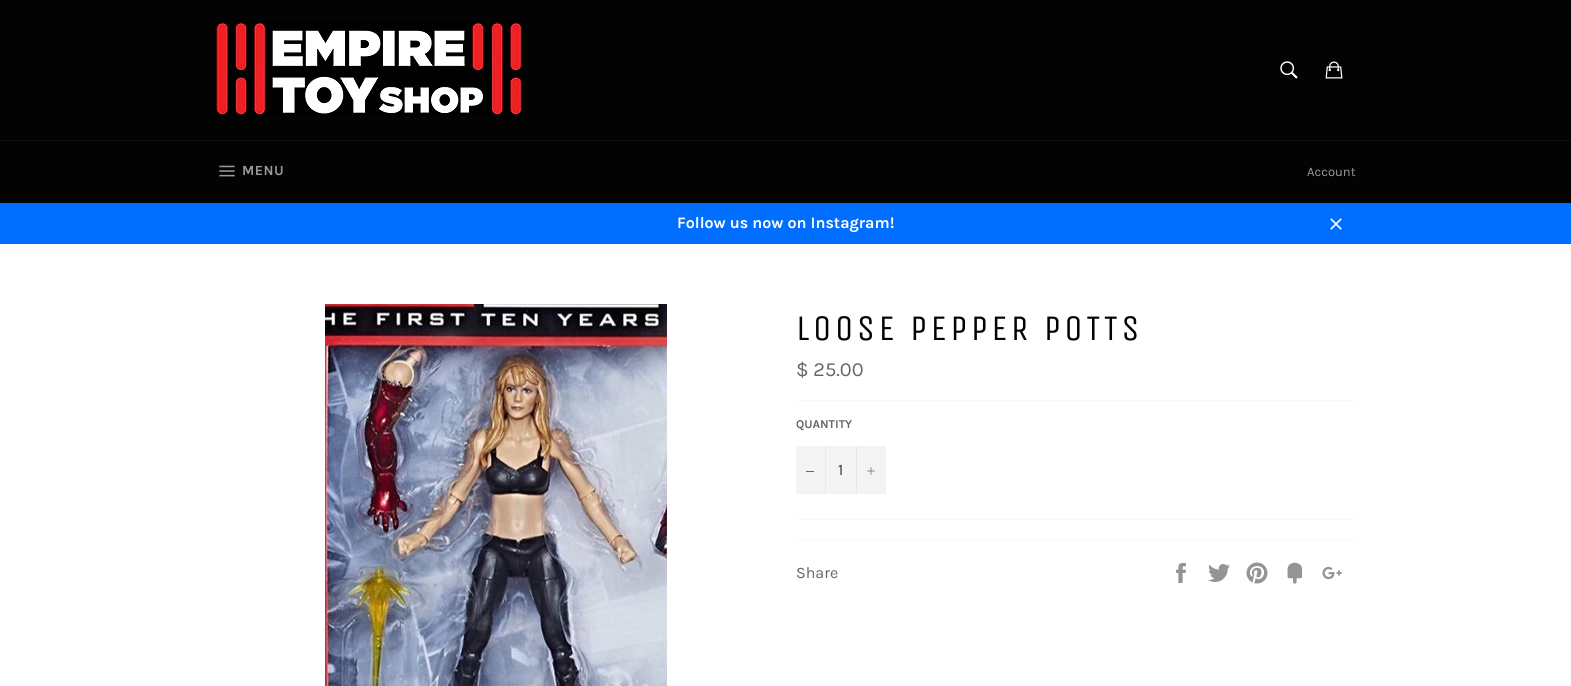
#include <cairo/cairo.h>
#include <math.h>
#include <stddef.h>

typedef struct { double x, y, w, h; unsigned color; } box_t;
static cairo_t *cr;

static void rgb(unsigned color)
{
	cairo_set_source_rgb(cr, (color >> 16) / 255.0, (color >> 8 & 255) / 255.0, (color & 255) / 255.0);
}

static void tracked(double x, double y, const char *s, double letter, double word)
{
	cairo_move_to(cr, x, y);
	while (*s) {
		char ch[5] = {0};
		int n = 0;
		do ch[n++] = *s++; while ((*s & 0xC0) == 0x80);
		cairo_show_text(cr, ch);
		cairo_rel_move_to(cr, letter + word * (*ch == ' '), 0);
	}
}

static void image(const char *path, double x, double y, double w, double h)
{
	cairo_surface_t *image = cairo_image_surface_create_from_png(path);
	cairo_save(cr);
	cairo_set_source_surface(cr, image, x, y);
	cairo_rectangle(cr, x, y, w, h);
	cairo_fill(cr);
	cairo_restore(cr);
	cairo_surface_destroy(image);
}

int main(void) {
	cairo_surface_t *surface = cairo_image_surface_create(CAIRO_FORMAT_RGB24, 1571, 686);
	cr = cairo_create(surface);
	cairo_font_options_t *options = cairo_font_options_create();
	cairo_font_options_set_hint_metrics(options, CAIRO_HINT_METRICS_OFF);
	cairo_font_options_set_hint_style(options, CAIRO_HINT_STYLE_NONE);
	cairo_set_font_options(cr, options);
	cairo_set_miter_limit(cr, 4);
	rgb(0xffffff);
	cairo_paint(cr);
	rgb(0x030303);
	cairo_rectangle(cr, 0, 0, 1571, 140);
	cairo_fill(cr);
	image("img/1.png", 216, 20, 306, 96);
	image("img/2.png", 1280, 61, 18, 18);
	image("img/3.png", 1325, 61, 18, 18);
	cairo_rectangle(cr, 0, 141, 1571, 62);
	cairo_fill(cr);
	rgb(0x101010);
	cairo_rectangle(cr, 0, 140, 1571, 1);
	cairo_fill(cr);
	image("img/4.png", 219, 165, 16, 12);
	rgb(0x006eff);
	cairo_rectangle(cr, 0, 203, 1571, 41);
	cairo_fill(cr);
	image("img/5.png", 1330, 218, 12, 12);
	image("img/6.png", 325, 304, 342, 382);
	{
		static const box_t items[] = {
			{796, 400, 560, 1, 0xf7f7f7},
			{796, 446, 90, 48, 0xf4f4f4},
			{825, 446, 1, 48, 0xe7e7e7},
			{806, 471, 8, 1, 0x666666},
			{856, 446, 1, 48, 0xe7e7e7},
		};
		for (size_t i = 0; i < sizeof items / sizeof *items; i++) {
			rgb(items[i].color);
			cairo_rectangle(cr, items[i].x, items[i].y, items[i].w, items[i].h);
			cairo_fill(cr);
		}
	}
	image("img/7.png", 867, 467, 8, 8);
	rgb(0xf7f7f7);
	cairo_rectangle(cr, 796, 519, 560, 1);
	cairo_fill(cr);
	cairo_rectangle(cr, 796, 540, 560, 1);
	cairo_fill(cr);
	image("img/8.png", 1176, 563, 10, 20);
	image("img/9.png", 1208, 564, 22, 18);
	image("img/10.png", 1246, 562, 22, 22);
	image("img/11.png", 1287, 562, 16, 22);
	image("img/12.png", 1322, 566, 20, 14);
	cairo_select_font_face(cr, "Karla", CAIRO_FONT_SLANT_NORMAL, CAIRO_FONT_WEIGHT_BOLD);
	cairo_set_font_size(cr, 14);
	rgb(0x9a9a9a);
	tracked(242, 175, "MENU", 0.5, 0);
	cairo_select_font_face(cr, "Karla", CAIRO_FONT_SLANT_NORMAL, CAIRO_FONT_WEIGHT_NORMAL);
	cairo_set_font_size(cr, 13);
	cairo_move_to(cr, 1307, 176);
	cairo_show_text(cr, "Account");
	cairo_select_font_face(cr, "Karla", CAIRO_FONT_SLANT_NORMAL, CAIRO_FONT_WEIGHT_BOLD);
	cairo_set_font_size(cr, 16);
	rgb(0xffffff);
	cairo_move_to(cr, 677, 228);
	cairo_show_text(cr, "Follow us now on Instagram!");
	cairo_select_font_face(cr, "Unica One", CAIRO_FONT_SLANT_NORMAL, CAIRO_FONT_WEIGHT_NORMAL);
	cairo_set_font_size(cr, 36);
	rgb(0x030303);
	tracked(796, 340, "LOOSE PEPPER POTTS", 3.6, 0);
	cairo_select_font_face(cr, "Karla", CAIRO_FONT_SLANT_NORMAL, CAIRO_FONT_WEIGHT_NORMAL);
	cairo_set_font_size(cr, 20);
	rgb(0x666666);
	cairo_move_to(cr, 796, 376);
	cairo_show_text(cr, "$ 25.00");
	cairo_select_font_face(cr, "Karla", CAIRO_FONT_SLANT_NORMAL, CAIRO_FONT_WEIGHT_BOLD);
	cairo_set_font_size(cr, 12);
	cairo_move_to(cr, 796, 428);
	cairo_show_text(cr, "QUANTITY");
	cairo_select_font_face(cr, "Karla", CAIRO_FONT_SLANT_NORMAL, CAIRO_FONT_WEIGHT_NORMAL);
	cairo_set_font_size(cr, 16);
	rgb(0x333333);
	cairo_move_to(cr, 838, 475);
	cairo_show_text(cr, "1");
	rgb(0x666666);
	cairo_move_to(cr, 796, 578);
	cairo_show_text(cr, "Share");
	cairo_surface_write_to_png(surface, "page.png");
	cairo_font_options_destroy(options);
	cairo_destroy(cr);
	cairo_surface_destroy(surface);
	return 0;
}
